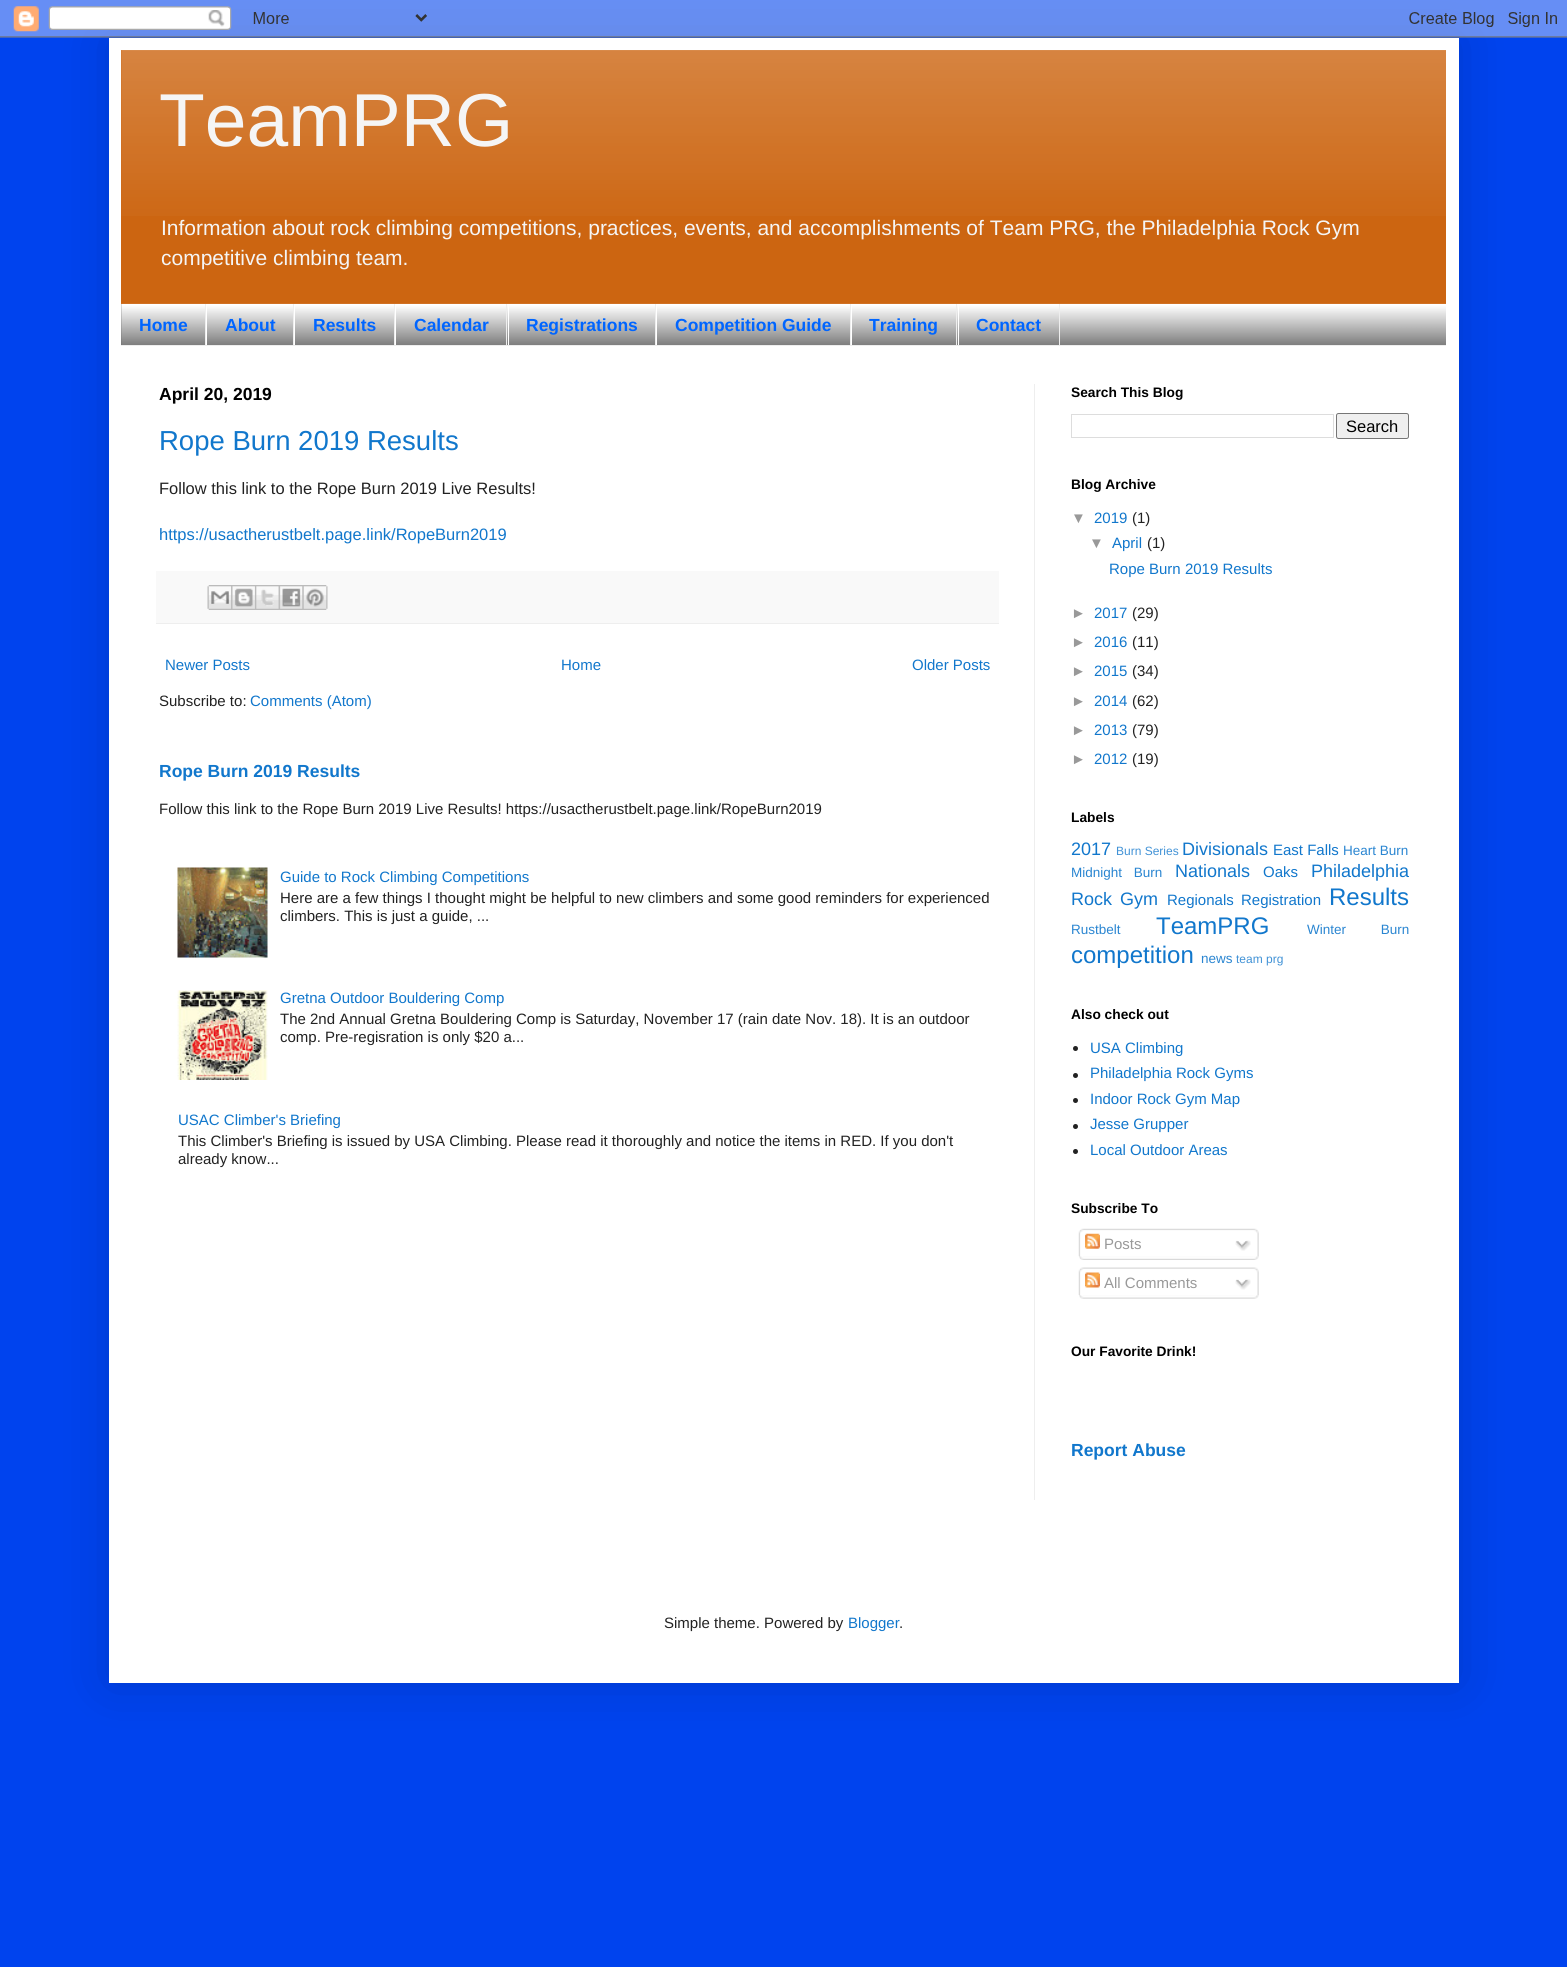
#include <cairo/cairo.h>
#include <math.h>
#include <stddef.h>

typedef struct { double x, y; const char *s; } line_t;
typedef struct { double x, y, w, h; unsigned color; } box_t;
static cairo_t *cr;

static void rgb(unsigned color)
{
	cairo_set_source_rgb(cr, (color >> 16) / 255.0, (color >> 8 & 255) / 255.0, (color & 255) / 255.0);
}

static void tracked(double x, double y, const char *s, double letter, double word)
{
	cairo_move_to(cr, x, y);
	while (*s) {
		char ch[5] = {0};
		int n = 0;
		do ch[n++] = *s++; while ((*s & 0xC0) == 0x80);
		cairo_show_text(cr, ch);
		cairo_rel_move_to(cr, letter + word * (*ch == ' '), 0);
	}
}

static void rrect(double x, double y, double w, double h, double r)
{
	cairo_new_sub_path(cr);
	cairo_arc(cr, x + w - r, y + h - r, r, 0, M_PI / 2);
	cairo_arc(cr, x + r, y + h - r, r, M_PI / 2, M_PI);
	cairo_arc(cr, x + r, y + r, r, M_PI, 1.5 * M_PI);
	cairo_arc(cr, x + w - r, y + r, r, 1.5 * M_PI, 2 * M_PI);
	cairo_close_path(cr);
}

static void soft_shadow(double x, double y, double w, double h, double r, double blur, double alpha)
{
	cairo_push_group_with_content(cr, CAIRO_CONTENT_ALPHA);
	cairo_set_operator(cr, CAIRO_OPERATOR_SOURCE);
	for (int i = 15; i >= -15 && fmin(w, h) + blur * i / 3 > 0; i -= 2) {
		double e = blur * i / 6;
		cairo_set_source_rgba(cr, 0, 0, 0, alpha * erfc((i - 1) / 8.5) / 2);
		rrect(x - e, y - e, w + 2 * e, h + 2 * e, fmax(0, fmin(r + e + blur * .6, fmin(w, h) / 2 + e)));
		cairo_fill(cr);
	}
	cairo_pattern_t *soft = cairo_pop_group(cr);
	cairo_mask(cr, soft);
	cairo_pattern_destroy(soft);
}

static void image(const char *path, double x, double y, double w, double h)
{
	cairo_surface_t *image = cairo_image_surface_create_from_png(path);
	cairo_save(cr);
	cairo_set_source_surface(cr, image, x, y);
	cairo_rectangle(cr, x, y, w, h);
	cairo_fill(cr);
	cairo_restore(cr);
	cairo_surface_destroy(image);
}

int main(void) {
	cairo_surface_t *surface = cairo_image_surface_create(CAIRO_FORMAT_RGB24, 1567, 1967);
	cr = cairo_create(surface);
	cairo_font_options_t *options = cairo_font_options_create();
	cairo_font_options_set_hint_metrics(options, CAIRO_HINT_METRICS_OFF);
	cairo_font_options_set_hint_style(options, CAIRO_HINT_STYLE_NONE);
	cairo_set_font_options(cr, options);
	cairo_set_miter_limit(cr, 4);
	rgb(0x0043ee);
	cairo_paint(cr);
	rgb(0x000000);
	soft_shadow(109, 38, 1350, 1645, 0, 25, 0.15);
	image("img/1.png", 0, 0, 1567, 38);
	rgb(0xffffff);
	cairo_rectangle(cr, 109, 38, 1350, 1645);
	cairo_fill(cr);
	rgb(0xcc6511);
	cairo_rectangle(cr, 121, 50, 1325, 254);
	cairo_fill(cr);
	image("img/2.png", 121, 50, 1325, 166);
	rgb(0x666666);
	cairo_rectangle(cr, 121, 304, 1325, 41);
	cairo_fill(cr);
	image("img/3.png", 121, 303, 1325, 42);
	{
		static const box_t items[] = {
			{121, 345, 1325, 1, 0xeeeeee},
			{205, 304, 1, 41, 0xeeeeee},
			{293, 304, 1, 41, 0xeeeeee},
			{206, 304, 1, 41, 0xffffff},
			{394, 304, 1, 41, 0xeeeeee},
			{294, 304, 1, 41, 0xffffff},
			{506, 304, 1, 41, 0xeeeeee},
			{395, 304, 1, 41, 0xffffff},
			{655, 304, 1, 41, 0xeeeeee},
			{508, 304, 1, 41, 0xffffff},
			{850, 304, 1, 41, 0xeeeeee},
			{656, 304, 1, 41, 0xffffff},
			{956, 304, 1, 41, 0xeeeeee},
			{851, 304, 1, 41, 0xffffff},
			{1059, 304, 1, 41, 0xeeeeee},
			{958, 304, 1, 41, 0xffffff},
			{1034, 384, 1, 1116, 0xeeeeee},
			{156, 571, 843, 52, 0xf9f9f9},
			{156, 623, 843, 1, 0xeeeeee},
		};
		for (size_t i = 0; i < sizeof items / sizeof *items; i++) {
			rgb(items[i].color);
			cairo_rectangle(cr, items[i].x, items[i].y, items[i].w, items[i].h);
			cairo_fill(cr);
		}
	}
	image("img/4.png", 207, 585, 25, 25);
	image("img/5.png", 231, 585, 24, 25);
	image("img/6.png", 255, 585, 24, 25);
	image("img/7.png", 278, 585, 25, 25);
	image("img/8.png", 302, 585, 26, 25);
	image("img/9.png", 177, 867, 91, 91);
	image("img/10.png", 177, 990, 91, 90);
	cairo_rectangle(cr, 1071.5, 414.5, 262, 23);
	rgb(0xdddddd);
	cairo_set_line_width(cr, 1);
	cairo_stroke(cr);
	rgb(0xefefef);
	rrect(1336.5, 413.5, 72, 25, 2);
	cairo_fill_preserve(cr);
	rgb(0x767676);
	cairo_stroke(cr);
	rgb(0x222222);
	cairo_arc(cr, 1075.5, 1048.5, 2.5, 0, 2 * M_PI);
	cairo_fill(cr);
	cairo_arc(cr, 1075.5, 1075.5, 2.5, 0, 2 * M_PI);
	cairo_fill(cr);
	cairo_arc(cr, 1075.5, 1100.5, 2.5, 0, 2 * M_PI);
	cairo_fill(cr);
	cairo_arc(cr, 1075.5, 1126.5, 2.5, 0, 2 * M_PI);
	cairo_fill(cr);
	cairo_arc(cr, 1075.5, 1151.5, 2.5, 0, 2 * M_PI);
	cairo_fill(cr);
	image("img/11.png", 1078, 1228, 181, 29);
	image("img/12.png", 1085, 1233, 15, 16);
	image("img/13.png", 1235, 1240, 16, 11);
	image("img/14.png", 1079, 1256, 180, 4);
	image("img/15.png", 1078, 1267, 181, 28);
	image("img/16.png", 1085, 1272, 15, 16);
	image("img/17.png", 1235, 1279, 16, 11);
	image("img/18.png", 1079, 1295, 180, 4);
	cairo_select_font_face(cr, "Liberation Sans", CAIRO_FONT_SLANT_NORMAL, CAIRO_FONT_WEIGHT_NORMAL);
	cairo_set_font_size(cr, 75);
	rgb(0xf5f5f5);
	cairo_move_to(cr, 159, 146);
	cairo_show_text(cr, "TeamPRG");
	cairo_set_font_size(cr, 21);
	cairo_move_to(cr, 161, 235);
	cairo_show_text(cr, "Information about rock climbing competitions, practices, events, and accomplishments of Team PRG, the Philadelphia Rock Gym");
	cairo_move_to(cr, 161, 265);
	cairo_show_text(cr, "competitive climbing team.");
	cairo_select_font_face(cr, "Liberation Sans", CAIRO_FONT_SLANT_NORMAL, CAIRO_FONT_WEIGHT_BOLD);
	cairo_set_font_size(cr, 17.5);
	rgb(0x0065ff);
	{
		static const line_t items[] = {
			{139, 331, "Home"},
			{225, 331, "About"},
			{313, 331, "Results"},
			{414, 331, "Calendar"},
			{526, 331, "Registrations"},
			{675, 331, "Competition Guide"},
			{869, 331, "Training"},
			{976, 331, "Contact"},
		};
		for (size_t i = 0; i < sizeof items / sizeof *items; i++) {
			cairo_move_to(cr, items[i].x, items[i].y);
			cairo_show_text(cr, items[i].s);
		}
	}
	rgb(0x000000);
	cairo_move_to(cr, 159, 400);
	cairo_show_text(cr, "April 20, 2019");
	cairo_select_font_face(cr, "Liberation Sans", CAIRO_FONT_SLANT_NORMAL, CAIRO_FONT_WEIGHT_NORMAL);
	cairo_set_font_size(cr, 27.5);
	rgb(0x1177cc);
	cairo_move_to(cr, 159, 450);
	cairo_show_text(cr, "Rope Burn 2019 Results");
	cairo_set_font_size(cr, 16.5);
	rgb(0x222222);
	cairo_move_to(cr, 159, 494);
	cairo_show_text(cr, "Follow this link to the Rope Burn 2019 Live Results!");
	rgb(0x1177cc);
	cairo_move_to(cr, 159, 540);
	cairo_show_text(cr, "https://usactherustbelt.page.link/RopeBurn2019");
	cairo_set_font_size(cr, 15);
	{
		static const line_t items[] = {
			{165, 670, "Newer Posts"},
			{561, 670, "Home"},
			{912, 670, "Older Posts"},
		};
		for (size_t i = 0; i < sizeof items / sizeof *items; i++) {
			cairo_move_to(cr, items[i].x, items[i].y);
			cairo_show_text(cr, items[i].s);
		}
	}
	rgb(0x222222);
	cairo_move_to(cr, 159, 706);
	cairo_show_text(cr, "Subscribe to:");
	rgb(0x1177cc);
	cairo_move_to(cr, 250, 706);
	cairo_show_text(cr, "Comments (Atom)");
	cairo_select_font_face(cr, "Liberation Sans", CAIRO_FONT_SLANT_NORMAL, CAIRO_FONT_WEIGHT_BOLD);
	cairo_set_font_size(cr, 17.5);
	cairo_move_to(cr, 159, 777);
	cairo_show_text(cr, "Rope Burn 2019 Results");
	cairo_select_font_face(cr, "Liberation Sans", CAIRO_FONT_SLANT_NORMAL, CAIRO_FONT_WEIGHT_NORMAL);
	cairo_set_font_size(cr, 15);
	rgb(0x222222);
	cairo_move_to(cr, 159, 814);
	cairo_show_text(cr, "Follow this link to the Rope Burn 2019 Live Results! https://usactherustbelt.page.link/RopeBurn2019");
	rgb(0x1177cc);
	cairo_move_to(cr, 280, 882);
	cairo_show_text(cr, "Guide to Rock Climbing Competitions");
	rgb(0x222222);
	cairo_move_to(cr, 280, 903);
	cairo_show_text(cr, "Here are a few things I thought might be helpful to new climbers and some good reminders for experienced");
	cairo_move_to(cr, 280, 921);
	cairo_show_text(cr, "climbers. This is just a guide, ...");
	rgb(0x1177cc);
	cairo_move_to(cr, 280, 1003);
	cairo_show_text(cr, "Gretna Outdoor Bouldering Comp");
	rgb(0x222222);
	cairo_move_to(cr, 280, 1024);
	cairo_show_text(cr, "The 2nd Annual Gretna Bouldering Comp is Saturday, November 17 (rain date Nov. 18). It is an outdoor");
	cairo_move_to(cr, 280, 1042);
	cairo_show_text(cr, "comp. Pre-regisration is only $20 a...");
	rgb(0x1177cc);
	cairo_move_to(cr, 178, 1125);
	cairo_show_text(cr, "USAC Climber's Briefing");
	rgb(0x222222);
	cairo_move_to(cr, 178, 1146);
	cairo_show_text(cr, "This Climber's Briefing is issued by USA Climbing. Please read it thoroughly and notice the items in RED. If you don't");
	cairo_move_to(cr, 178, 1164);
	cairo_show_text(cr, "already know...");
	cairo_select_font_face(cr, "Liberation Sans", CAIRO_FONT_SLANT_NORMAL, CAIRO_FONT_WEIGHT_BOLD);
	cairo_set_font_size(cr, 13.75);
	rgb(0x000000);
	cairo_move_to(cr, 1071, 397);
	cairo_show_text(cr, "Search This Blog");
	cairo_select_font_face(cr, "Liberation Sans", CAIRO_FONT_SLANT_NORMAL, CAIRO_FONT_WEIGHT_NORMAL);
	cairo_set_font_size(cr, 16.5);
	cairo_move_to(cr, 1346, 432);
	cairo_show_text(cr, "Search");
	cairo_select_font_face(cr, "Liberation Sans", CAIRO_FONT_SLANT_NORMAL, CAIRO_FONT_WEIGHT_BOLD);
	cairo_set_font_size(cr, 13.75);
	cairo_move_to(cr, 1071, 489);
	cairo_show_text(cr, "Blog Archive");
	cairo_select_font_face(cr, "Liberation Sans", CAIRO_FONT_SLANT_NORMAL, CAIRO_FONT_WEIGHT_NORMAL);
	cairo_set_font_size(cr, 15);
	rgb(0x999999);
	cairo_move_to(cr, 1071, 523);
	cairo_show_text(cr, "▼");
	rgb(0x1177cc);
	cairo_move_to(cr, 1094, 523);
	cairo_show_text(cr, "2019");
	rgb(0x222222);
	cairo_move_to(cr, 1132, 523);
	cairo_show_text(cr, "(1)");
	rgb(0x999999);
	cairo_move_to(cr, 1089, 548);
	cairo_show_text(cr, "▼");
	rgb(0x1177cc);
	cairo_move_to(cr, 1112, 548);
	cairo_show_text(cr, "April");
	rgb(0x222222);
	cairo_move_to(cr, 1147, 548);
	cairo_show_text(cr, "(1)");
	rgb(0x1177cc);
	cairo_move_to(cr, 1109, 574);
	cairo_show_text(cr, "Rope Burn 2019 Results");
	rgb(0x999999);
	cairo_move_to(cr, 1071, 618);
	cairo_show_text(cr, "►");
	rgb(0x1177cc);
	cairo_move_to(cr, 1094, 618);
	cairo_show_text(cr, "2017");
	rgb(0x222222);
	cairo_move_to(cr, 1132, 618);
	cairo_show_text(cr, "(29)");
	rgb(0x999999);
	cairo_move_to(cr, 1071, 647);
	cairo_show_text(cr, "►");
	rgb(0x1177cc);
	cairo_move_to(cr, 1094, 647);
	cairo_show_text(cr, "2016");
	rgb(0x222222);
	cairo_move_to(cr, 1132, 647);
	cairo_show_text(cr, "(11)");
	rgb(0x999999);
	cairo_move_to(cr, 1071, 676);
	cairo_show_text(cr, "►");
	rgb(0x1177cc);
	cairo_move_to(cr, 1094, 676);
	cairo_show_text(cr, "2015");
	rgb(0x222222);
	cairo_move_to(cr, 1132, 676);
	cairo_show_text(cr, "(34)");
	rgb(0x999999);
	cairo_move_to(cr, 1071, 706);
	cairo_show_text(cr, "►");
	rgb(0x1177cc);
	cairo_move_to(cr, 1094, 706);
	cairo_show_text(cr, "2014");
	rgb(0x222222);
	cairo_move_to(cr, 1132, 706);
	cairo_show_text(cr, "(62)");
	rgb(0x999999);
	cairo_move_to(cr, 1071, 735);
	cairo_show_text(cr, "►");
	rgb(0x1177cc);
	cairo_move_to(cr, 1094, 735);
	cairo_show_text(cr, "2013");
	rgb(0x222222);
	cairo_move_to(cr, 1132, 735);
	cairo_show_text(cr, "(79)");
	rgb(0x999999);
	cairo_move_to(cr, 1071, 764);
	cairo_show_text(cr, "►");
	rgb(0x1177cc);
	cairo_move_to(cr, 1094, 764);
	cairo_show_text(cr, "2012");
	rgb(0x222222);
	cairo_move_to(cr, 1132, 764);
	cairo_show_text(cr, "(19)");
	cairo_select_font_face(cr, "Liberation Sans", CAIRO_FONT_SLANT_NORMAL, CAIRO_FONT_WEIGHT_BOLD);
	cairo_set_font_size(cr, 13.75);
	rgb(0x000000);
	cairo_move_to(cr, 1071, 822);
	cairo_show_text(cr, "Labels");
	cairo_select_font_face(cr, "Liberation Sans", CAIRO_FONT_SLANT_NORMAL, CAIRO_FONT_WEIGHT_NORMAL);
	cairo_set_font_size(cr, 18);
	rgb(0x1177cc);
	cairo_move_to(cr, 1071, 855);
	cairo_show_text(cr, "2017");
	cairo_set_font_size(cr, 12);
	rgb(0x4192d6);
	cairo_move_to(cr, 1116, 855);
	cairo_show_text(cr, "Burn Series");
	cairo_set_font_size(cr, 18);
	rgb(0x1177cc);
	cairo_move_to(cr, 1182, 855);
	cairo_show_text(cr, "Divisionals");
	cairo_set_font_size(cr, 15);
	cairo_move_to(cr, 1273, 855);
	cairo_show_text(cr, "East Falls");
	cairo_set_font_size(cr, 13.5);
	rgb(0x2985d1);
	cairo_move_to(cr, 1343, 855);
	cairo_show_text(cr, "Heart Burn");
	tracked(1071, 877, "Midnight Burn", 0, 8);
	cairo_set_font_size(cr, 18);
	rgb(0x1177cc);
	cairo_move_to(cr, 1175, 877);
	cairo_show_text(cr, "Nationals");
	cairo_set_font_size(cr, 15);
	cairo_move_to(cr, 1263, 877);
	cairo_show_text(cr, "Oaks");
	cairo_set_font_size(cr, 18);
	cairo_move_to(cr, 1311, 877);
	cairo_show_text(cr, "Philadelphia");
	tracked(1071, 905, "Rock Gym", 0, 3);
	cairo_set_font_size(cr, 15);
	cairo_move_to(cr, 1167, 905);
	cairo_show_text(cr, "Regionals");
	cairo_move_to(cr, 1241, 905);
	cairo_show_text(cr, "Registration");
	cairo_set_font_size(cr, 24);
	cairo_move_to(cr, 1329, 905);
	cairo_show_text(cr, "Results");
	cairo_set_font_size(cr, 13.5);
	rgb(0x2985d1);
	cairo_move_to(cr, 1071, 934);
	cairo_show_text(cr, "Rustbelt");
	cairo_set_font_size(cr, 24);
	rgb(0x1177cc);
	cairo_move_to(cr, 1156, 934);
	cairo_show_text(cr, "TeamPRG");
	cairo_set_font_size(cr, 13.5);
	rgb(0x2985d1);
	tracked(1307, 934, "Winter Burn", 0, 31);
	cairo_set_font_size(cr, 24);
	rgb(0x1177cc);
	cairo_move_to(cr, 1071, 963);
	cairo_show_text(cr, "competition");
	cairo_set_font_size(cr, 13.5);
	rgb(0x2985d1);
	cairo_move_to(cr, 1201, 963);
	cairo_show_text(cr, "news");
	cairo_set_font_size(cr, 12);
	rgb(0x4192d6);
	cairo_move_to(cr, 1236, 963);
	cairo_show_text(cr, "team prg");
	cairo_select_font_face(cr, "Liberation Sans", CAIRO_FONT_SLANT_NORMAL, CAIRO_FONT_WEIGHT_BOLD);
	cairo_set_font_size(cr, 13.75);
	rgb(0x000000);
	cairo_move_to(cr, 1071, 1019);
	cairo_show_text(cr, "Also check out");
	cairo_select_font_face(cr, "Liberation Sans", CAIRO_FONT_SLANT_NORMAL, CAIRO_FONT_WEIGHT_NORMAL);
	cairo_set_font_size(cr, 15);
	rgb(0x1177cc);
	{
		static const line_t items[] = {
			{1090, 1053, "USA Climbing"},
			{1090, 1078, "Philadelphia Rock Gyms"},
			{1090, 1104, "Indoor Rock Gym Map"},
			{1090, 1129, "Jesse Grupper"},
			{1090, 1155, "Local Outdoor Areas"},
		};
		for (size_t i = 0; i < sizeof items / sizeof *items; i++) {
			cairo_move_to(cr, items[i].x, items[i].y);
			cairo_show_text(cr, items[i].s);
		}
	}
	cairo_select_font_face(cr, "Liberation Sans", CAIRO_FONT_SLANT_NORMAL, CAIRO_FONT_WEIGHT_BOLD);
	cairo_set_font_size(cr, 13.75);
	rgb(0x000000);
	cairo_move_to(cr, 1071, 1213);
	cairo_show_text(cr, "Subscribe To");
	cairo_select_font_face(cr, "Liberation Sans", CAIRO_FONT_SLANT_NORMAL, CAIRO_FONT_WEIGHT_NORMAL);
	cairo_set_font_size(cr, 15);
	rgb(0x999999);
	cairo_move_to(cr, 1104, 1249);
	cairo_show_text(cr, "Posts");
	cairo_move_to(cr, 1104, 1288);
	cairo_show_text(cr, "All Comments");
	cairo_select_font_face(cr, "Liberation Sans", CAIRO_FONT_SLANT_NORMAL, CAIRO_FONT_WEIGHT_BOLD);
	cairo_set_font_size(cr, 13.75);
	rgb(0x000000);
	cairo_move_to(cr, 1071, 1356);
	cairo_show_text(cr, "Our Favorite Drink!");
	cairo_set_font_size(cr, 17.5);
	rgb(0x1177cc);
	cairo_move_to(cr, 1071, 1456);
	cairo_show_text(cr, "Report Abuse");
	cairo_select_font_face(cr, "Liberation Sans", CAIRO_FONT_SLANT_NORMAL, CAIRO_FONT_WEIGHT_NORMAL);
	cairo_set_font_size(cr, 15);
	rgb(0x222222);
	cairo_move_to(cr, 664, 1628);
	cairo_show_text(cr, "Simple theme. Powered by");
	rgb(0x1177cc);
	cairo_move_to(cr, 848, 1628);
	cairo_show_text(cr, "Blogger");
	rgb(0x222222);
	cairo_move_to(cr, 899, 1628);
	cairo_show_text(cr, ".");
	cairo_surface_write_to_png(surface, "page.png");
	cairo_font_options_destroy(options);
	cairo_destroy(cr);
	cairo_surface_destroy(surface);
	return 0;
}
